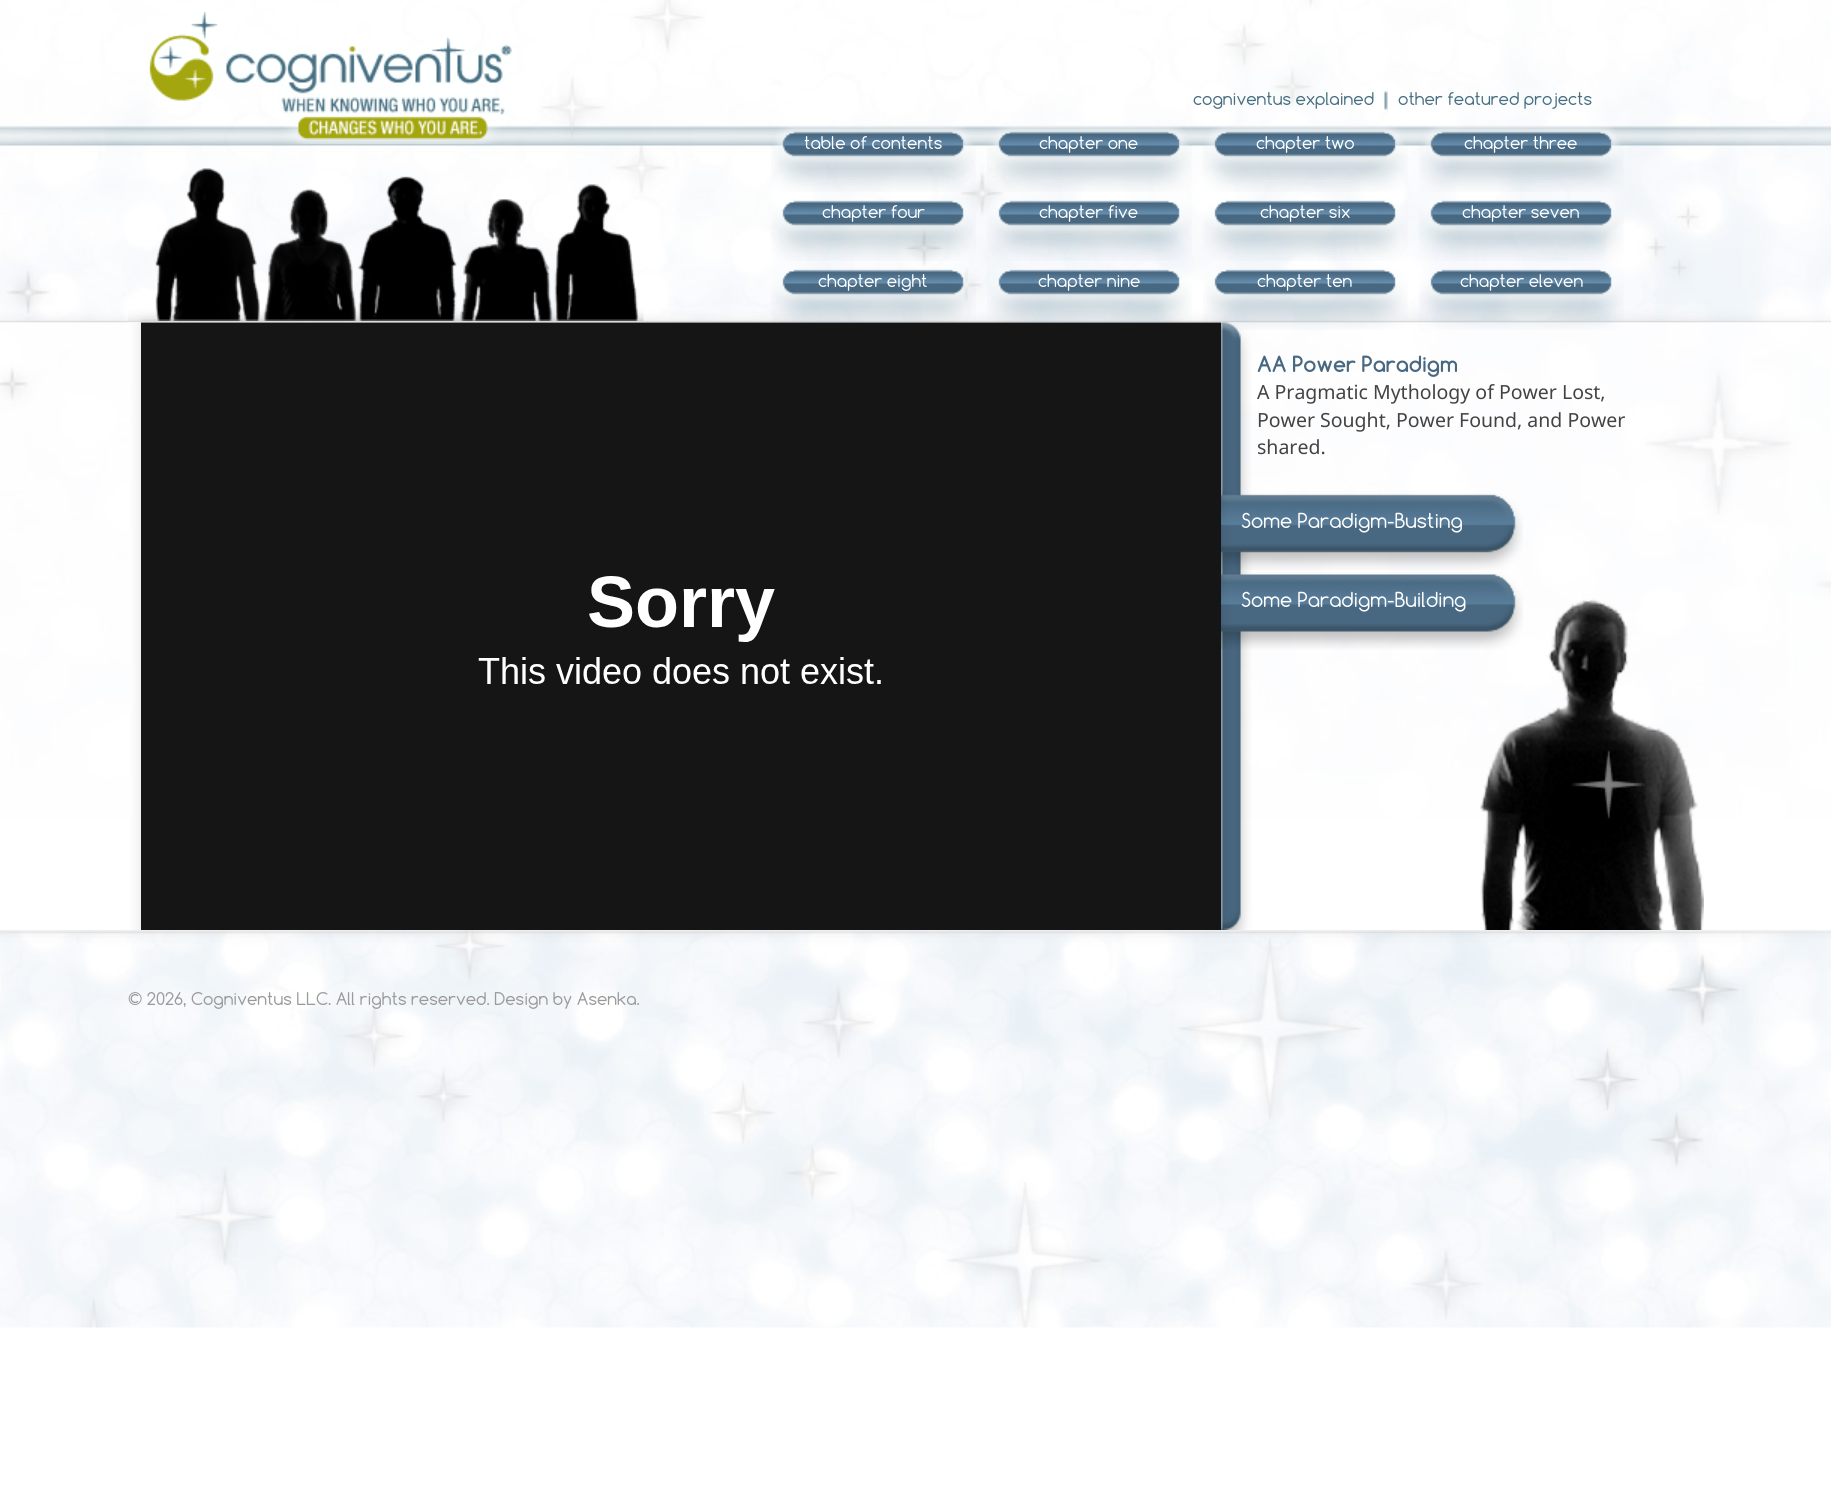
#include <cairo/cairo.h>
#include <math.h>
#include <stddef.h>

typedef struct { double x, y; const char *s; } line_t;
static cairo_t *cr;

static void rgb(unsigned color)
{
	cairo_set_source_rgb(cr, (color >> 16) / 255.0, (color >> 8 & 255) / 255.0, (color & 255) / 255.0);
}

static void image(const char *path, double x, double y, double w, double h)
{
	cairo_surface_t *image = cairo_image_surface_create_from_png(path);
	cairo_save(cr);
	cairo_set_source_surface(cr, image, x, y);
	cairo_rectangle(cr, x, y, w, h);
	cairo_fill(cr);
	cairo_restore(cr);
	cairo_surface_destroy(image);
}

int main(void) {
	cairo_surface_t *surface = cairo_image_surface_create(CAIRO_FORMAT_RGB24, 1831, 1503);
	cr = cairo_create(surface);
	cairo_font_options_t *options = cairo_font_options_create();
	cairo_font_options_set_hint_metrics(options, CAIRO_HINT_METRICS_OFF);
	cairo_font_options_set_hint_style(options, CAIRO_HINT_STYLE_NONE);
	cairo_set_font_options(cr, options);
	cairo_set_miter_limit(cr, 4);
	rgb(0xffffff);
	cairo_paint(cr);
	image("img/1.png", 0, 0, 1831, 323);
	image("img/2.png", 149, 11, 363, 133);
	image("img/3.png", 1384, 91, 4, 19);
	image("img/4.png", 128, 168, 516, 153);
	image("img/5.png", 771, 126, 205, 66);
	image("img/6.png", 987, 126, 205, 66);
	image("img/7.png", 1203, 126, 205, 66);
	image("img/8.png", 1419, 126, 205, 66);
	image("img/9.png", 771, 200, 205, 61);
	image("img/10.png", 987, 200, 205, 61);
	image("img/11.png", 1203, 200, 205, 61);
	image("img/12.png", 1419, 200, 205, 61);
	image("img/17.png", 0, 322, 1831, 498);
	image("img/13.png", 771, 269, 205, 54);
	image("img/14.png", 987, 268, 205, 55);
	image("img/15.png", 1203, 269, 205, 61);
	image("img/16.png", 1419, 269, 205, 61);
	image("img/18.png", 130, 322, 11, 608);
	image("img/19.png", 141, 322, 1080, 608);
	image("img/20.png", 1221, 322, 483, 608);
	image("img/21.png", 1221, 491, 302, 79);
	image("img/22.png", 1221, 570, 302, 80);
	image("img/23.png", 0, 930, 1831, 398);
	cairo_select_font_face(cr, "Comfortaa", CAIRO_FONT_SLANT_NORMAL, CAIRO_FONT_WEIGHT_NORMAL);
	cairo_set_font_size(cr, 16.6);
	rgb(0x466f82);
	cairo_move_to(cr, 1193, 105);
	cairo_show_text(cr, "cogniventus explained");
	cairo_move_to(cr, 1398, 105);
	cairo_show_text(cr, "other featured projects");
	rgb(0xffffff);
	{
		static const line_t items[] = {
			{804, 149, "table of contents"},
			{1039, 149, "chapter one"},
			{1256, 149, "chapter two"},
			{1464, 149, "chapter three"},
			{822, 218, "chapter four"},
			{1039, 218, "chapter five"},
			{1260, 218, "chapter six"},
			{1462, 218, "chapter seven"},
			{818, 287, "chapter eight"},
			{1038, 287, "chapter nine"},
			{1257, 287, "chapter ten"},
			{1460, 287, "chapter eleven"},
		};
		for (size_t i = 0; i < sizeof items / sizeof *items; i++) {
			cairo_move_to(cr, items[i].x, items[i].y);
			cairo_show_text(cr, items[i].s);
		}
	}
	cairo_select_font_face(cr, "Comfortaa", CAIRO_FONT_SLANT_NORMAL, CAIRO_FONT_WEIGHT_BOLD);
	cairo_set_font_size(cr, 21);
	rgb(0x486780);
	cairo_move_to(cr, 1257, 372);
	cairo_show_text(cr, "AA Power Paradigm");
	cairo_select_font_face(cr, "Noto Sans", CAIRO_FONT_SLANT_NORMAL, CAIRO_FONT_WEIGHT_NORMAL);
	cairo_set_font_size(cr, 19.5);
	rgb(0x434343);
	{
		static const line_t items[] = {
			{1257, 399, "A Pragmatic Mythology of Power Lost,"},
			{1257, 427, "Power Sought, Power Found, and Power"},
			{1257, 454, "shared."},
		};
		for (size_t i = 0; i < sizeof items / sizeof *items; i++) {
			cairo_move_to(cr, items[i].x, items[i].y);
			cairo_show_text(cr, items[i].s);
		}
	}
	cairo_select_font_face(cr, "Comfortaa", CAIRO_FONT_SLANT_NORMAL, CAIRO_FONT_WEIGHT_NORMAL);
	rgb(0xffffff);
	cairo_move_to(cr, 1241, 528);
	cairo_show_text(cr, "Some Paradigm-Busting");
	cairo_move_to(cr, 1241, 607);
	cairo_show_text(cr, "Some Paradigm-Building");
	cairo_set_font_size(cr, 16.6);
	rgb(0x9b9a9b);
	cairo_move_to(cr, 128, 1005);
	cairo_show_text(cr, "© 2026, Cogniventus LLC. All rights reserved. Design by Asenka.");
	cairo_surface_write_to_png(surface, "page.png");
	cairo_font_options_destroy(options);
	cairo_destroy(cr);
	cairo_surface_destroy(surface);
	return 0;
}
